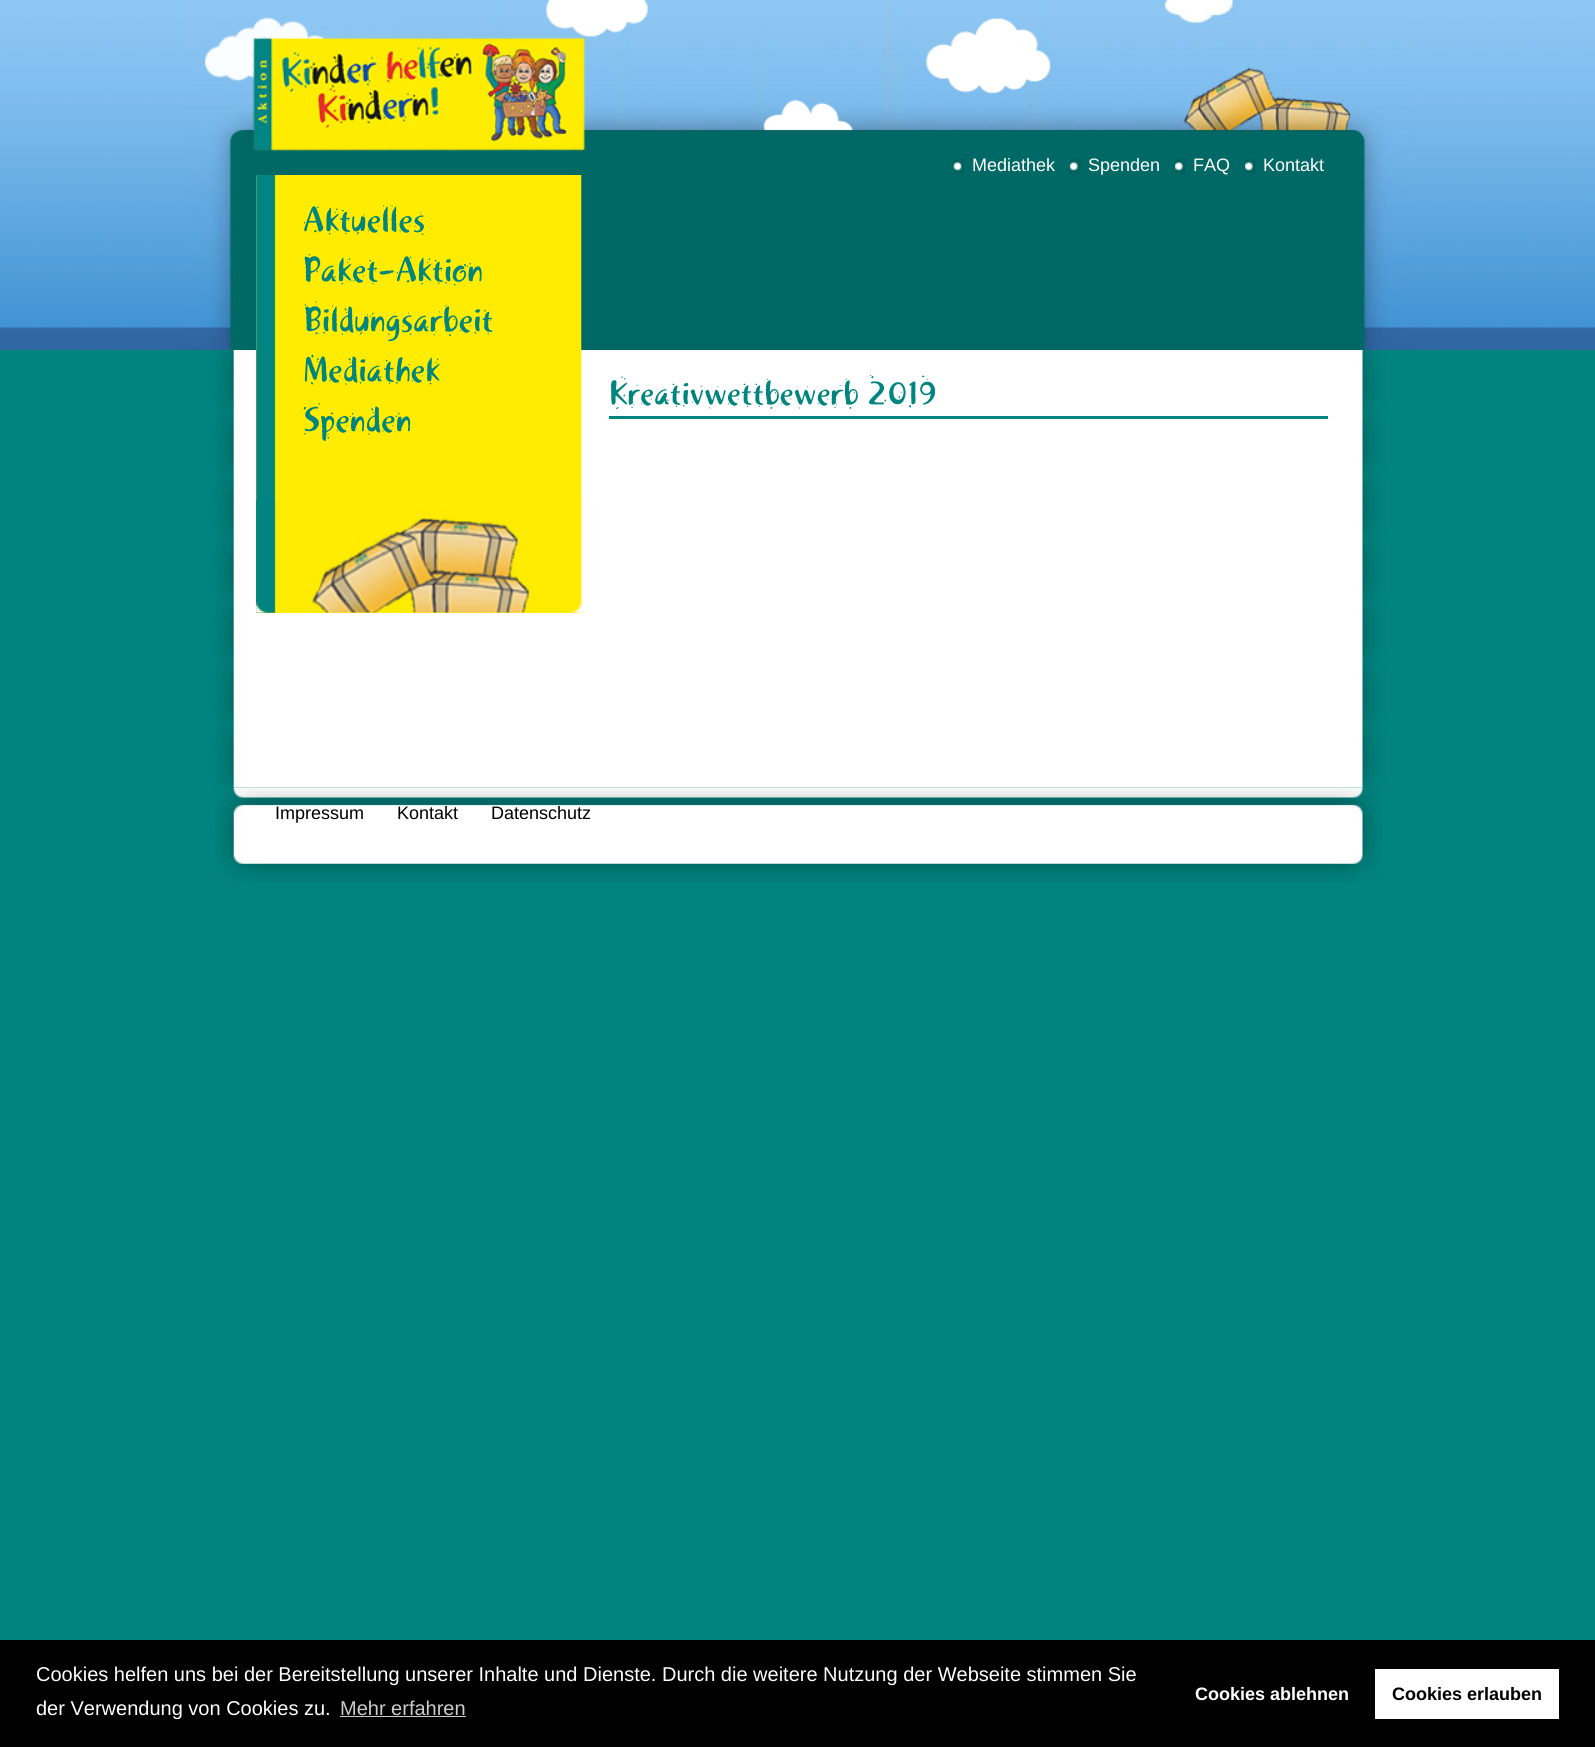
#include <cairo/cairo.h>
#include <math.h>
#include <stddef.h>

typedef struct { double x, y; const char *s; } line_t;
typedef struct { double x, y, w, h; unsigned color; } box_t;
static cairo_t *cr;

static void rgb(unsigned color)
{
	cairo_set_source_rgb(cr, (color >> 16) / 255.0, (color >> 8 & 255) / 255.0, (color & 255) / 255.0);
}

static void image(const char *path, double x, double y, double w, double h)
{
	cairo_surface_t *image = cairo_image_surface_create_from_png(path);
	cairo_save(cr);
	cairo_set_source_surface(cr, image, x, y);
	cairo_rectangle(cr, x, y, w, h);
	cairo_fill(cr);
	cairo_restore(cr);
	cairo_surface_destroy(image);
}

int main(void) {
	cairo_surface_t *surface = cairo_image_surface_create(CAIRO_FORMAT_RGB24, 1595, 1747);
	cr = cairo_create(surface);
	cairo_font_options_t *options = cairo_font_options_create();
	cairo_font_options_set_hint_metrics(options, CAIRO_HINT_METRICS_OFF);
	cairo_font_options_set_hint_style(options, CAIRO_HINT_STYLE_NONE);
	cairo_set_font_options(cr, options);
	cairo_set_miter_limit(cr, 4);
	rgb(0x01847f);
	cairo_paint(cr);
	image("img/1.png", 0, 0, 1595, 351);
	image("img/2.png", 185, 0, 1225, 350);
	image("img/3.png", 953, 159, 12, 15);
	image("img/4.png", 1070, 159, 11, 15);
	image("img/5.png", 1175, 159, 11, 15);
	image("img/4.png", 1245, 159, 11, 15);
	image("img/6.png", 185, 350, 1222, 438);
	rgb(0xffed00);
	cairo_rectangle(cr, 256, 175, 325, 438);
	cairo_fill(cr);
	image("img/7.png", 256, 175, 326, 438);
	image("img/8.png", 256, 500, 326, 113);
	rgb(0x00847e);
	cairo_rectangle(cr, 609, 416, 719, 3);
	cairo_fill(cr);
	image("img/9.png", 215, 787, 1167, 96);
	{
		static const box_t items[] = {
			{0, 1640, 1595, 107, 0x000000},
			{340, 1716, 126, 1, 0xcccccc},
			{1375, 1669, 184, 50, 0xffffff},
		};
		for (size_t i = 0; i < sizeof items / sizeof *items; i++) {
			rgb(items[i].color);
			cairo_rectangle(cr, items[i].x, items[i].y, items[i].w, items[i].h);
			cairo_fill(cr);
		}
	}
	cairo_select_font_face(cr, "Liberation Sans", CAIRO_FONT_SLANT_NORMAL, CAIRO_FONT_WEIGHT_NORMAL);
	cairo_set_font_size(cr, 18);
	{
		static const line_t items[] = {
			{972, 171, "Mediathek"},
			{1088, 171, "Spenden"},
			{1193, 171, "FAQ"},
			{1263, 171, "Kontakt"},
		};
		for (size_t i = 0; i < sizeof items / sizeof *items; i++) {
			cairo_move_to(cr, items[i].x, items[i].y);
			cairo_show_text(cr, items[i].s);
		}
	}
	cairo_select_font_face(cr, "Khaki", CAIRO_FONT_SLANT_NORMAL, CAIRO_FONT_WEIGHT_NORMAL);
	cairo_set_font_size(cr, 35);
	rgb(0x00847e);
	{
		static const line_t items[] = {
			{303, 231, "Aktuelles"},
			{303, 281, "Paket-Aktion"},
			{303, 331, "Bildungsarbeit"},
			{303, 381, "Mediathek"},
			{303, 431, "Spenden"},
		};
		for (size_t i = 0; i < sizeof items / sizeof *items; i++) {
			cairo_move_to(cr, items[i].x, items[i].y);
			cairo_show_text(cr, items[i].s);
		}
	}
	cairo_set_font_size(cr, 33.75);
	cairo_move_to(cr, 609, 404);
	cairo_show_text(cr, "Kreativwettbewerb 2019");
	cairo_select_font_face(cr, "Liberation Sans", CAIRO_FONT_SLANT_NORMAL, CAIRO_FONT_WEIGHT_NORMAL);
	cairo_set_font_size(cr, 18);
	rgb(0x000000);
	{
		static const line_t items[] = {
			{275, 819, "Impressum"},
			{397, 819, "Kontakt"},
			{491, 819, "Datenschutz"},
		};
		for (size_t i = 0; i < sizeof items / sizeof *items; i++) {
			cairo_move_to(cr, items[i].x, items[i].y);
			cairo_show_text(cr, items[i].s);
		}
	}
	cairo_set_font_size(cr, 20);
	rgb(0xffffff);
	cairo_move_to(cr, 36, 1681);
	cairo_show_text(cr, "Cookies helfen uns bei der Bereitstellung unserer Inhalte und Dienste. Durch die weitere Nutzung der Webseite stimmen Sie");
	cairo_move_to(cr, 36, 1715);
	cairo_show_text(cr, "der Verwendung von Cookies zu.");
	rgb(0xcccccc);
	cairo_move_to(cr, 340, 1715);
	cairo_show_text(cr, "Mehr erfahren");
	cairo_select_font_face(cr, "Liberation Sans", CAIRO_FONT_SLANT_NORMAL, CAIRO_FONT_WEIGHT_BOLD);
	cairo_set_font_size(cr, 18);
	rgb(0xffffff);
	cairo_move_to(cr, 1195, 1700);
	cairo_show_text(cr, "Cookies ablehnen");
	rgb(0x000000);
	cairo_move_to(cr, 1392, 1700);
	cairo_show_text(cr, "Cookies erlauben");
	cairo_surface_write_to_png(surface, "page.png");
	cairo_font_options_destroy(options);
	cairo_destroy(cr);
	cairo_surface_destroy(surface);
	return 0;
}
